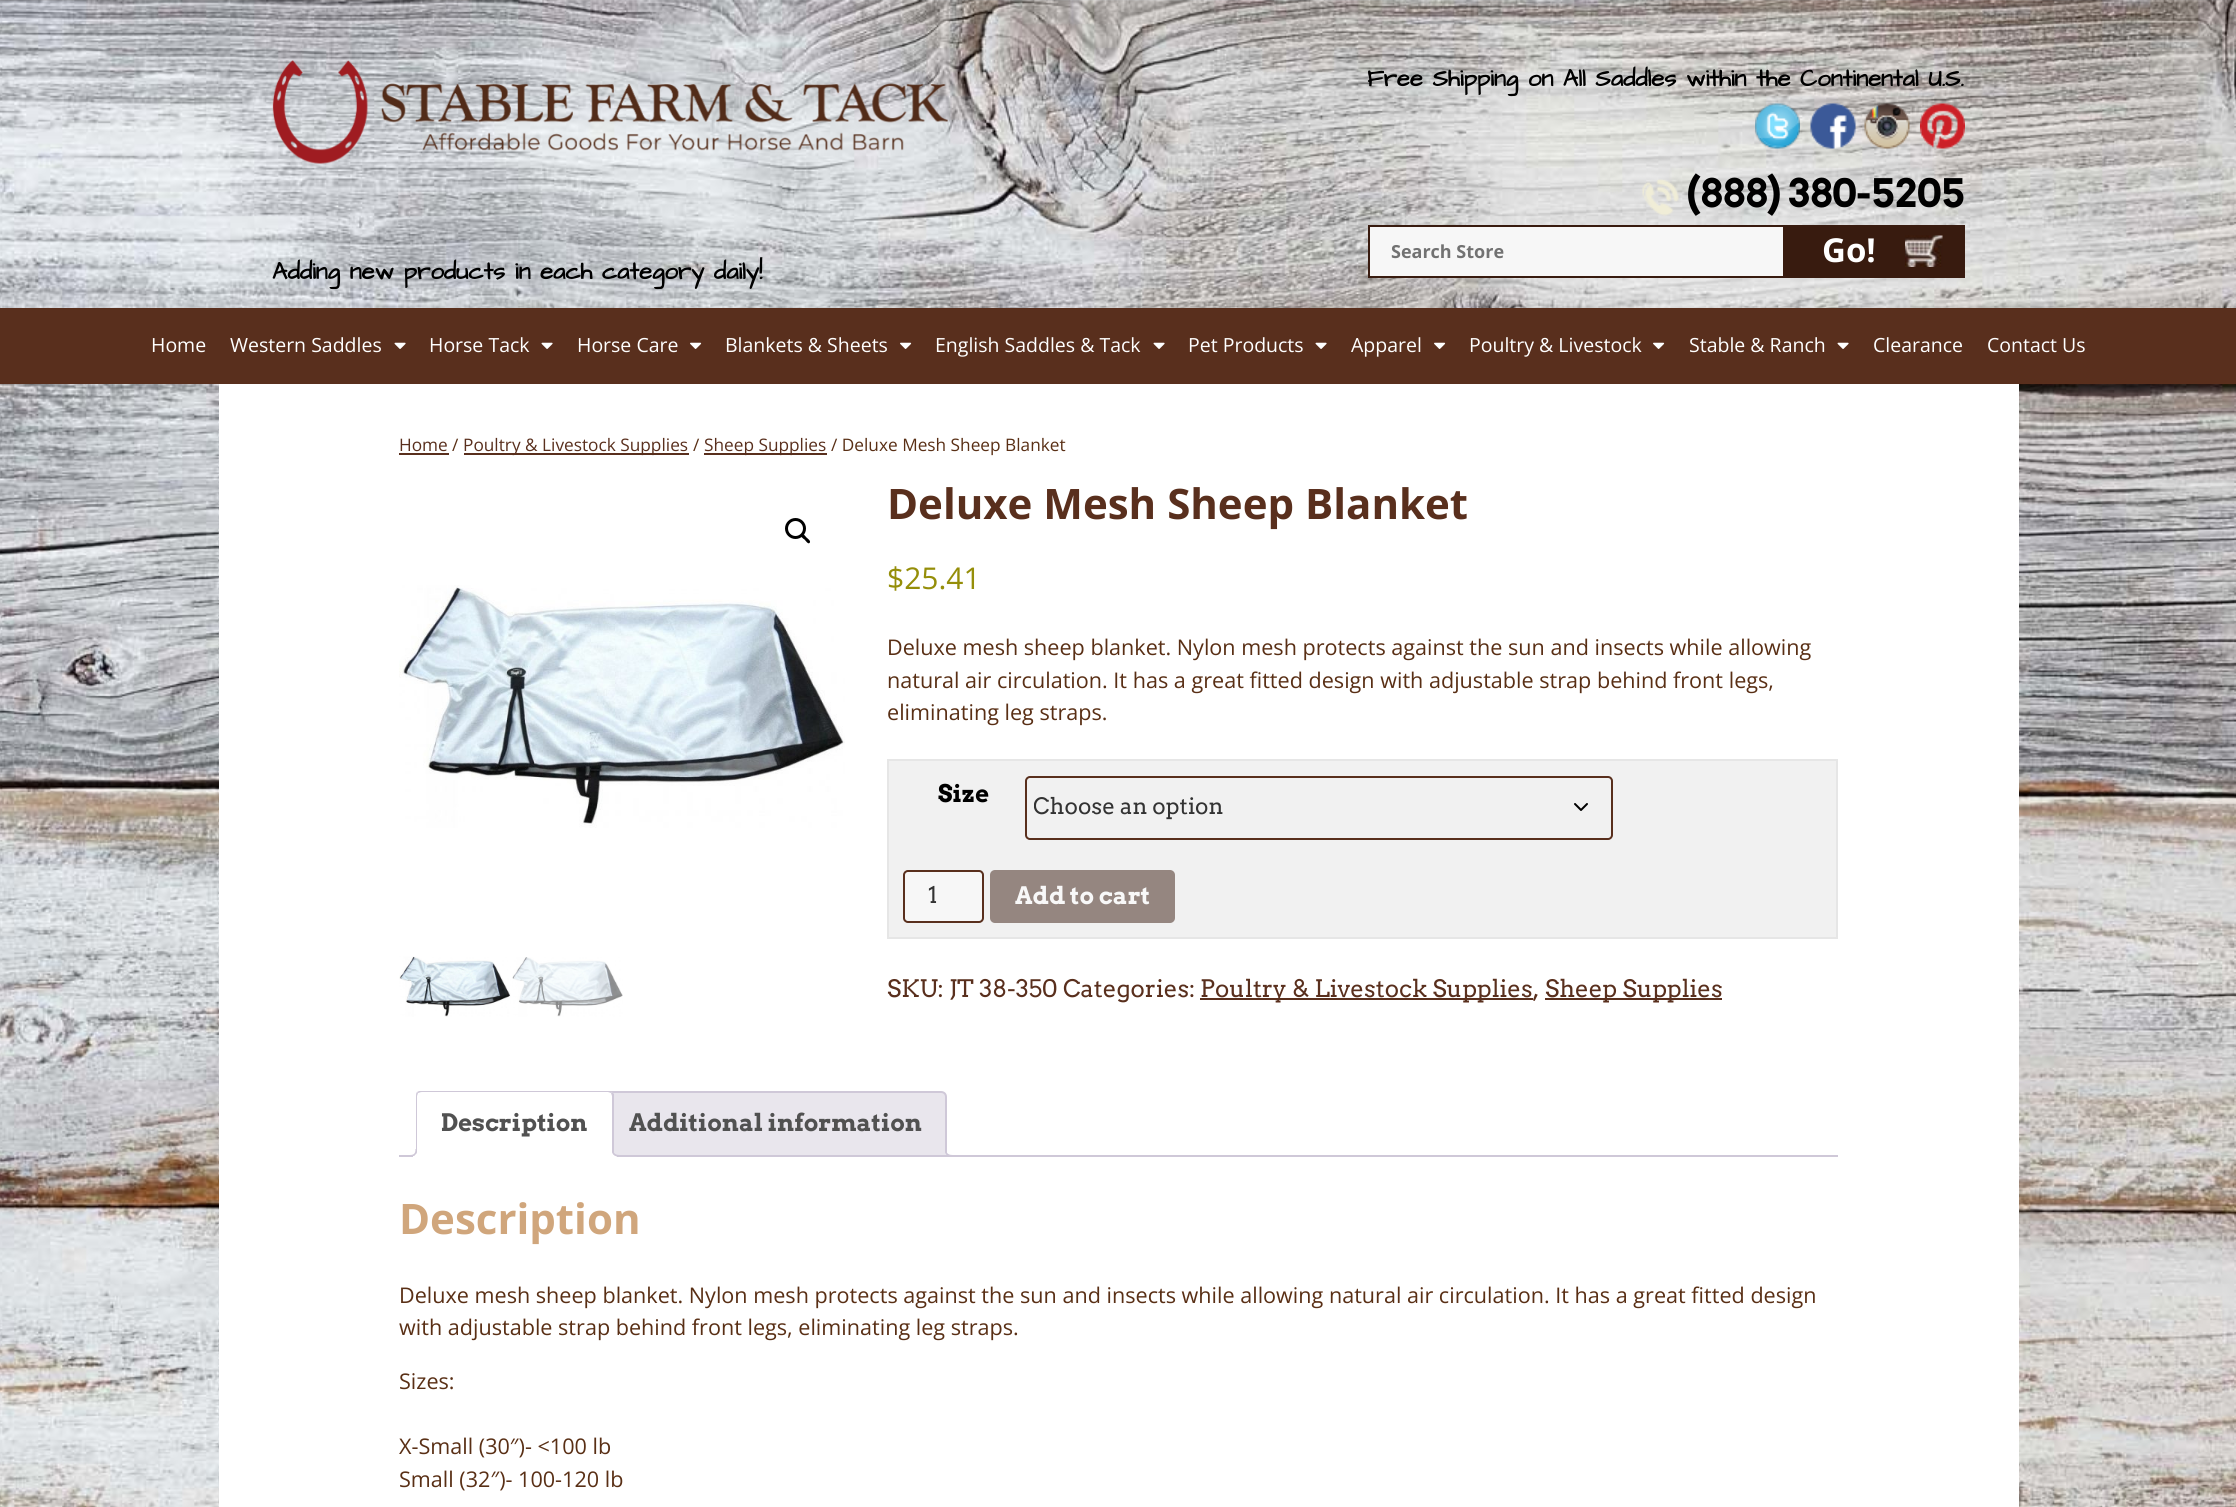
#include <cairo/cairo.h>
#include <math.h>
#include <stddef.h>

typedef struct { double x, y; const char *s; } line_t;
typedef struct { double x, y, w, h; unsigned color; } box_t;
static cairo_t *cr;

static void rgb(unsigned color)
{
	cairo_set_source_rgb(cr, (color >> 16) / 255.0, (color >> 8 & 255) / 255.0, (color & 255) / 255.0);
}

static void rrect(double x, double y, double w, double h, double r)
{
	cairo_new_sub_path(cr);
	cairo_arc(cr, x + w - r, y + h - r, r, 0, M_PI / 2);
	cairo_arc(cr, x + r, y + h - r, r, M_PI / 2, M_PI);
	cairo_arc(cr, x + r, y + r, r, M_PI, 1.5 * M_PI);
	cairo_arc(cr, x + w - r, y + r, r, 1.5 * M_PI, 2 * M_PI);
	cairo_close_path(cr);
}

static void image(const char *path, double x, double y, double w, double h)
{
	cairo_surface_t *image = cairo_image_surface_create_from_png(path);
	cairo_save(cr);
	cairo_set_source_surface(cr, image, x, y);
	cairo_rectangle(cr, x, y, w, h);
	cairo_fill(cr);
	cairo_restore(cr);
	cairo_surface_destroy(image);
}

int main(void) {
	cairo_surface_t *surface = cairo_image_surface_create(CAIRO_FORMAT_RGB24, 2236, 1507);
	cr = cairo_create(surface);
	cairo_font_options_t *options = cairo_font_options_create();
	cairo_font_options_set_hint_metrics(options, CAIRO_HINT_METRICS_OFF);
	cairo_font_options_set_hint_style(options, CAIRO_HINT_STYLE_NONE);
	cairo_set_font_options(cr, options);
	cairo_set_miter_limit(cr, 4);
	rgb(0xffffff);
	cairo_paint(cr);
	image("img/1.png", 0, 0, 2236, 1507);
	image("img/2.png", 1755, 103, 45, 46);
	image("img/3.png", 1810, 103, 46, 46);
	image("img/4.png", 1864, 103, 46, 46);
	image("img/5.png", 1920, 103, 45, 46);
	image("img/6.png", 1642, 179, 37, 37);
	rgb(0xf7f7f7);
	cairo_rectangle(cr, 1369, 226, 415, 51);
	cairo_fill_preserve(cr);
	rgb(0x381b0f);
	cairo_stroke(cr);
	cairo_rectangle(cr, 1785, 225, 180, 53);
	cairo_fill(cr);
	image("img/7.png", 1905, 235, 38, 32);
	image("img/8.png", 272, 60, 676, 104);
	rgb(0x592f1d);
	cairo_rectangle(cr, 0, 308, 2236, 76);
	cairo_fill(cr);
	image("img/9.png", 394, 342, 12, 7);
	image("img/9.png", 541, 342, 12, 7);
	image("img/10.png", 690, 342, 12, 7);
	image("img/10.png", 900, 342, 12, 7);
	image("img/9.png", 1153, 342, 12, 7);
	image("img/9.png", 1315, 342, 12, 7);
	image("img/10.png", 1434, 342, 12, 7);
	image("img/10.png", 1653, 342, 12, 7);
	image("img/9.png", 1837, 342, 12, 7);
	{
		static const box_t items[] = {
			{219, 384, 1800, 1123, 0xffffff},
			{399, 453, 50, 2, 0x592f1d},
			{464, 453, 225, 2, 0x592f1d},
			{704, 453, 123, 2, 0x592f1d},
		};
		for (size_t i = 0; i < sizeof items / sizeof *items; i++) {
			rgb(items[i].color);
			cairo_rectangle(cr, items[i].x, items[i].y, items[i].w, items[i].h);
			cairo_fill(cr);
		}
	}
	cairo_arc(cr, 795.5, 528.5, 9, 0, 2 * M_PI);
	rgb(0x000000);
	cairo_set_line_width(cr, 3);
	cairo_stroke(cr);
	cairo_new_path(cr);
	cairo_move_to(cr, 801.5, 534.5);
	cairo_curve_to(cr, 803, 532.5, 805.5, 536.5, 806.5, 537.5);
	cairo_curve_to(cr, 807.5, 538.5, 811.5, 541, 809.5, 543);
	cairo_curve_to(cr, 808, 544.5, 805.5, 540.5, 804.5, 539.5);
	cairo_curve_to(cr, 803.5, 539, 799.5, 536, 801.5, 534.5);
	cairo_close_path(cr);
	cairo_fill(cr);
	image("img/11.png", 399, 585, 446, 243);
	image("img/12.png", 399, 956, 112, 61);
	image("img/13.png", 512, 957, 111, 60);
	rgb(0xf1f1f1);
	cairo_rectangle(cr, 888, 760, 949, 178);
	cairo_fill_preserve(cr);
	rgb(0xe6e6e6);
	cairo_set_line_width(cr, 2);
	cairo_stroke(cr);
	cairo_new_path(cr);
	cairo_move_to(cr, 1575, 804);
	cairo_line_to(cr, 1581, 810);
	cairo_line_to(cr, 1587, 804);
	rgb(0x000000);
	cairo_set_line_cap(cr, CAIRO_LINE_CAP_ROUND);
	cairo_set_line_join(cr, CAIRO_LINE_JOIN_ROUND);
	cairo_stroke(cr);
	rrect(1026, 777, 586, 62, 4);
	rgb(0x592f1d);
	cairo_set_line_cap(cr, CAIRO_LINE_CAP_BUTT);
	cairo_set_line_join(cr, CAIRO_LINE_JOIN_MITER);
	cairo_stroke(cr);
	rgb(0xf7f7f7);
	rrect(904, 871, 79, 51, 4);
	cairo_fill_preserve(cr);
	rgb(0x592f1d);
	cairo_stroke(cr);
	rgb(0x958680);
	rrect(990, 870, 185, 53, 5);
	cairo_fill(cr);
	rgb(0x592f1d);
	cairo_rectangle(cr, 1200, 998, 333, 2);
	cairo_fill(cr);
	cairo_rectangle(cr, 1545, 998, 177, 2);
	cairo_fill(cr);
	rgb(0xe9e6ed);
	cairo_new_path(cr);
	cairo_move_to(cr, 609, 1092);
	cairo_line_to(cr, 941, 1092);
	cairo_curve_to(cr, 944, 1092, 946, 1094, 946, 1097);
	cairo_line_to(cr, 946, 1156);
	cairo_line_to(cr, 604, 1156);
	cairo_line_to(cr, 604, 1097);
	cairo_curve_to(cr, 604, 1094, 606, 1092, 609, 1092);
	cairo_close_path(cr);
	cairo_fill_preserve(cr);
	rgb(0xcfc8d8);
	cairo_stroke(cr);
	cairo_save(cr);
	cairo_rectangle(cr, 399, 1091, 1439, 66);
	cairo_clip(cr);
	rgb(0xe9e6ed);
	cairo_new_path(cr);
	cairo_move_to(cr, 942, 1152);
	cairo_curve_to(cr, 942, 1158, 944, 1160, 950, 1160);
	cairo_line_to(cr, 950, 1156.5);
	cairo_curve_to(cr, 947.5, 1156, 946, 1154.5, 945, 1152);
	cairo_close_path(cr);
	cairo_fill(cr);
	cairo_restore(cr);
	cairo_set_fill_rule(cr, CAIRO_FILL_RULE_EVEN_ODD);
	cairo_new_path(cr);
	cairo_move_to(cr, 945, 1149);
	cairo_line_to(cr, 952.5, 1149);
	cairo_line_to(cr, 952.5, 1156.5);
	cairo_curve_to(cr, 948.5, 1156.5, 945, 1155, 945, 1150.5);
	cairo_close_path(cr);
	cairo_move_to(cr, 946.5, 1149);
	cairo_line_to(cr, 952.5, 1149);
	cairo_line_to(cr, 952.5, 1155);
	cairo_curve_to(cr, 949.5, 1155, 946.5, 1154, 946.5, 1150.5);
	cairo_close_path(cr);
	cairo_fill(cr);
	cairo_rectangle(cr, 399, 1155, 1439, 2);
	cairo_fill(cr);
	rgb(0xffffff);
	cairo_new_path(cr);
	cairo_move_to(cr, 422, 1091);
	cairo_line_to(cr, 608, 1091);
	cairo_curve_to(cr, 611.5, 1091, 614, 1093.5, 614, 1097);
	cairo_line_to(cr, 614, 1157);
	cairo_line_to(cr, 416, 1157);
	cairo_line_to(cr, 416, 1097);
	cairo_curve_to(cr, 416, 1093.5, 418.5, 1091, 422, 1091);
	cairo_close_path(cr);
	cairo_fill(cr);
	cairo_save(cr);
	cairo_set_fill_rule(cr, CAIRO_FILL_RULE_WINDING);
	cairo_rectangle(cr, 399, 1091, 1439, 66);
	cairo_clip(cr);
	rgb(0xcfc8d8);
	cairo_new_path(cr);
	cairo_move_to(cr, 422, 1092);
	cairo_curve_to(cr, 420, 1092, 419, 1093, 418, 1093);
	cairo_line_to(cr, 417, 1092);
	cairo_line_to(cr, 419, 1091);
	cairo_line_to(cr, 578, 1090);
	cairo_curve_to(cr, 590, 1090, 604, 1084, 612, 1092);
	cairo_line_to(cr, 611, 1093);
	cairo_line_to(cr, 608, 1092);
	cairo_close_path(cr);
	cairo_fill(cr);
	cairo_restore(cr);
	rgb(0xcfc8d8);
	cairo_set_fill_rule(cr, CAIRO_FILL_RULE_WINDING);
	cairo_new_path(cr);
	cairo_move_to(cr, 614, 1156);
	cairo_line_to(cr, 612, 1155);
	cairo_line_to(cr, 612, 1096);
	cairo_line_to(cr, 611, 1093);
	cairo_line_to(cr, 612, 1092);
	cairo_line_to(cr, 614, 1094);
	cairo_close_path(cr);
	cairo_fill(cr);
	rgb(0xffffff);
	cairo_new_path(cr);
	cairo_move_to(cr, 613, 1156);
	cairo_line_to(cr, 416, 1156);
	cairo_line_to(cr, 417, 1155);
	cairo_line_to(cr, 612, 1155);
	cairo_close_path(cr);
	cairo_fill(cr);
	rgb(0xcfc8d8);
	cairo_new_path(cr);
	cairo_move_to(cr, 416, 1156);
	cairo_line_to(cr, 417, 1155);
	cairo_line_to(cr, 417, 1096);
	cairo_line_to(cr, 418, 1093);
	cairo_line_to(cr, 417, 1092);
	cairo_curve_to(cr, 416, 1093, 416, 1095, 416, 1096);
	cairo_close_path(cr);
	cairo_fill(cr);
	cairo_save(cr);
	cairo_rectangle(cr, 399, 1091, 1439, 66);
	cairo_clip(cr);
	rgb(0xffffff);
	cairo_new_path(cr);
	cairo_move_to(cr, 413, 1156);
	cairo_line_to(cr, 413, 1160);
	cairo_curve_to(cr, 418.5, 1160, 420, 1157, 420, 1152);
	cairo_line_to(cr, 417, 1152);
	cairo_curve_to(cr, 416.5, 1154, 415, 1155.5, 413, 1156);
	cairo_close_path(cr);
	cairo_fill(cr);
	cairo_restore(cr);
	cairo_set_fill_rule(cr, CAIRO_FILL_RULE_EVEN_ODD);
	cairo_new_path(cr);
	cairo_move_to(cr, 409.5, 1149);
	cairo_line_to(cr, 417, 1149);
	cairo_curve_to(cr, 417, 1154.5, 415, 1156.5, 409.5, 1156.5);
	cairo_close_path(cr);
	cairo_move_to(cr, 409.5, 1149);
	cairo_line_to(cr, 415.5, 1149);
	cairo_curve_to(cr, 415.5, 1153.5, 414, 1155, 409.5, 1155);
	cairo_close_path(cr);
	cairo_fill(cr);
	cairo_save(cr);
	cairo_set_fill_rule(cr, CAIRO_FILL_RULE_WINDING);
	cairo_rectangle(cr, 399, 1091, 1439, 66);
	cairo_clip(cr);
	rgb(0xffffff);
	cairo_new_path(cr);
	cairo_move_to(cr, 609, 1152);
	cairo_curve_to(cr, 609, 1158, 611, 1160, 617, 1160);
	cairo_line_to(cr, 617, 1156.5);
	cairo_curve_to(cr, 614.5, 1156, 613, 1154.5, 612, 1152);
	cairo_close_path(cr);
	cairo_fill(cr);
	cairo_restore(cr);
	cairo_new_path(cr);
	cairo_move_to(cr, 612, 1149);
	cairo_line_to(cr, 619.5, 1149);
	cairo_line_to(cr, 619.5, 1156.5);
	cairo_curve_to(cr, 615.5, 1156.5, 612, 1155, 612, 1150.5);
	cairo_close_path(cr);
	cairo_move_to(cr, 613.5, 1149);
	cairo_line_to(cr, 619.5, 1149);
	cairo_line_to(cr, 619.5, 1155);
	cairo_curve_to(cr, 616.5, 1155, 613.5, 1154, 613.5, 1150.5);
	cairo_close_path(cr);
	cairo_fill(cr);
	cairo_select_font_face(cr, "Architects Daughter", CAIRO_FONT_SLANT_NORMAL, CAIRO_FONT_WEIGHT_BOLD);
	cairo_set_font_size(cr, 24);
	rgb(0x000000);
	cairo_move_to(cr, 1367, 86);
	cairo_show_text(cr, "Free Shipping on All Saddles within the Continental U.S.");
	cairo_select_font_face(cr, "Arvo", CAIRO_FONT_SLANT_NORMAL, CAIRO_FONT_WEIGHT_BOLD);
	cairo_set_font_size(cr, 39);
	cairo_move_to(cr, 1686, 207);
	cairo_show_text(cr, "(888) 380-5205");
	cairo_select_font_face(cr, "Open Sans", CAIRO_FONT_SLANT_NORMAL, CAIRO_FONT_WEIGHT_BOLD);
	cairo_set_font_size(cr, 18);
	rgb(0x727272);
	cairo_move_to(cr, 1391, 258);
	cairo_show_text(cr, "Search Store");
	cairo_set_font_size(cr, 33);
	rgb(0xffffff);
	cairo_move_to(cr, 1822, 262);
	cairo_show_text(cr, "Go!");
	cairo_select_font_face(cr, "Architects Daughter", CAIRO_FONT_SLANT_NORMAL, CAIRO_FONT_WEIGHT_BOLD);
	cairo_set_font_size(cr, 24);
	rgb(0x000000);
	cairo_move_to(cr, 272, 279);
	cairo_show_text(cr, "Adding new products in each category daily!");
	cairo_select_font_face(cr, "Open Sans", CAIRO_FONT_SLANT_NORMAL, CAIRO_FONT_WEIGHT_NORMAL);
	cairo_set_font_size(cr, 19.5);
	rgb(0xffffff);
	{
		static const line_t items[] = {
			{151, 352, "Home"},
			{230, 352, "Western Saddles"},
			{429, 352, "Horse Tack"},
			{577, 352, "Horse Care"},
			{725, 352, "Blankets & Sheets"},
			{935, 352, "English Saddles & Tack"},
			{1188, 352, "Pet Products"},
			{1351, 352, "Apparel"},
			{1469, 352, "Poultry & Livestock"},
			{1689, 352, "Stable & Ranch"},
			{1873, 352, "Clearance"},
			{1987, 352, "Contact Us"},
		};
		for (size_t i = 0; i < sizeof items / sizeof *items; i++) {
			cairo_move_to(cr, items[i].x, items[i].y);
			cairo_show_text(cr, items[i].s);
		}
	}
	cairo_set_font_size(cr, 17.25);
	rgb(0x592f1d);
	cairo_move_to(cr, 399, 451);
	cairo_show_text(cr, "Home");
	rgb(0x592f15);
	cairo_move_to(cr, 452, 451);
	cairo_show_text(cr, "/");
	rgb(0x592f1d);
	cairo_move_to(cr, 463, 451);
	cairo_show_text(cr, "Poultry & Livestock Supplies");
	rgb(0x592f15);
	cairo_move_to(cr, 693, 451);
	cairo_show_text(cr, "/");
	rgb(0x592f1d);
	cairo_move_to(cr, 704, 451);
	cairo_show_text(cr, "Sheep Supplies");
	rgb(0x592f15);
	cairo_move_to(cr, 831, 451);
	cairo_show_text(cr, "/ Deluxe Mesh Sheep Blanket");
	cairo_select_font_face(cr, "Open Sans", CAIRO_FONT_SLANT_NORMAL, CAIRO_FONT_WEIGHT_BOLD);
	cairo_set_font_size(cr, 42);
	rgb(0x592f1d);
	cairo_move_to(cr, 887, 519);
	cairo_show_text(cr, "Deluxe Mesh Sheep Blanket");
	cairo_select_font_face(cr, "Open Sans", CAIRO_FONT_SLANT_NORMAL, CAIRO_FONT_WEIGHT_NORMAL);
	cairo_set_font_size(cr, 30);
	rgb(0x958e09);
	cairo_move_to(cr, 887, 589);
	cairo_show_text(cr, "$25.41");
	cairo_set_font_size(cr, 21.6);
	rgb(0x592f15);
	{
		static const line_t items[] = {
			{887, 655, "Deluxe mesh sheep blanket. Nylon mesh protects against the sun and insects while allowing"},
			{887, 688, "natural air circulation. It has a great fitted design with adjustable strap behind front legs,"},
			{887, 720, "eliminating leg straps."},
		};
		for (size_t i = 0; i < sizeof items / sizeof *items; i++) {
			cairo_move_to(cr, items[i].x, items[i].y);
			cairo_show_text(cr, items[i].s);
		}
	}
	cairo_select_font_face(cr, "Arvo", CAIRO_FONT_SLANT_NORMAL, CAIRO_FONT_WEIGHT_BOLD);
	cairo_set_font_size(cr, 24);
	rgb(0x000000);
	cairo_move_to(cr, 938, 802);
	cairo_show_text(cr, "Size");
	cairo_save(cr);
	cairo_set_fill_rule(cr, CAIRO_FILL_RULE_WINDING);
	cairo_rectangle(cr, 1034, 783, 510, 48);
	cairo_clip(cr);
	cairo_select_font_face(cr, "Arvo", CAIRO_FONT_SLANT_NORMAL, CAIRO_FONT_WEIGHT_NORMAL);
	cairo_set_font_size(cr, 22.5);
	rgb(0x333333);
	cairo_move_to(cr, 1033, 814);
	cairo_show_text(cr, "Choose an option");
	cairo_restore(cr);
	cairo_select_font_face(cr, "Arvo", CAIRO_FONT_SLANT_NORMAL, CAIRO_FONT_WEIGHT_NORMAL);
	cairo_set_font_size(cr, 22.5);
	rgb(0x333333);
	cairo_move_to(cr, 928, 903);
	cairo_show_text(cr, "1");
	cairo_select_font_face(cr, "Arvo", CAIRO_FONT_SLANT_NORMAL, CAIRO_FONT_WEIGHT_BOLD);
	cairo_set_font_size(cr, 24);
	rgb(0xf8f8f8);
	cairo_move_to(cr, 1015, 904);
	cairo_show_text(cr, "Add to cart");
	cairo_select_font_face(cr, "Arvo", CAIRO_FONT_SLANT_NORMAL, CAIRO_FONT_WEIGHT_NORMAL);
	rgb(0x592f1d);
	{
		static const line_t items[] = {
			{887, 997, "SKU: JT 38-350 Categories:"},
			{1200, 997, "Poultry & Livestock Supplies,"},
			{1545, 997, "Sheep Supplies"},
		};
		for (size_t i = 0; i < sizeof items / sizeof *items; i++) {
			cairo_move_to(cr, items[i].x, items[i].y);
			cairo_show_text(cr, items[i].s);
		}
	}
	cairo_select_font_face(cr, "Arvo", CAIRO_FONT_SLANT_NORMAL, CAIRO_FONT_WEIGHT_BOLD);
	rgb(0x515151);
	cairo_move_to(cr, 441, 1131);
	cairo_show_text(cr, "Description");
	cairo_move_to(cr, 629, 1131);
	cairo_show_text(cr, "Additional information");
	cairo_select_font_face(cr, "Open Sans", CAIRO_FONT_SLANT_NORMAL, CAIRO_FONT_WEIGHT_BOLD);
	cairo_set_font_size(cr, 42);
	rgb(0xd0a67c);
	cairo_move_to(cr, 399, 1234);
	cairo_show_text(cr, "Description");
	cairo_select_font_face(cr, "Open Sans", CAIRO_FONT_SLANT_NORMAL, CAIRO_FONT_WEIGHT_NORMAL);
	cairo_set_font_size(cr, 21.6);
	rgb(0x592f15);
	{
		static const line_t items[] = {
			{399, 1303, "Deluxe mesh sheep blanket. Nylon mesh protects against the sun and insects while allowing natural air circulation. It has a great fitted design"},
			{399, 1335, "with adjustable strap behind front legs, eliminating leg straps."},
			{399, 1389, "Sizes:"},
			{399, 1454, "X-Small (30″)- <100 lb"},
			{399, 1487, "Small (32″)- 100-120 lb"},
		};
		for (size_t i = 0; i < sizeof items / sizeof *items; i++) {
			cairo_move_to(cr, items[i].x, items[i].y);
			cairo_show_text(cr, items[i].s);
		}
	}
	cairo_surface_write_to_png(surface, "page.png");
	cairo_font_options_destroy(options);
	cairo_destroy(cr);
	cairo_surface_destroy(surface);
	return 0;
}
